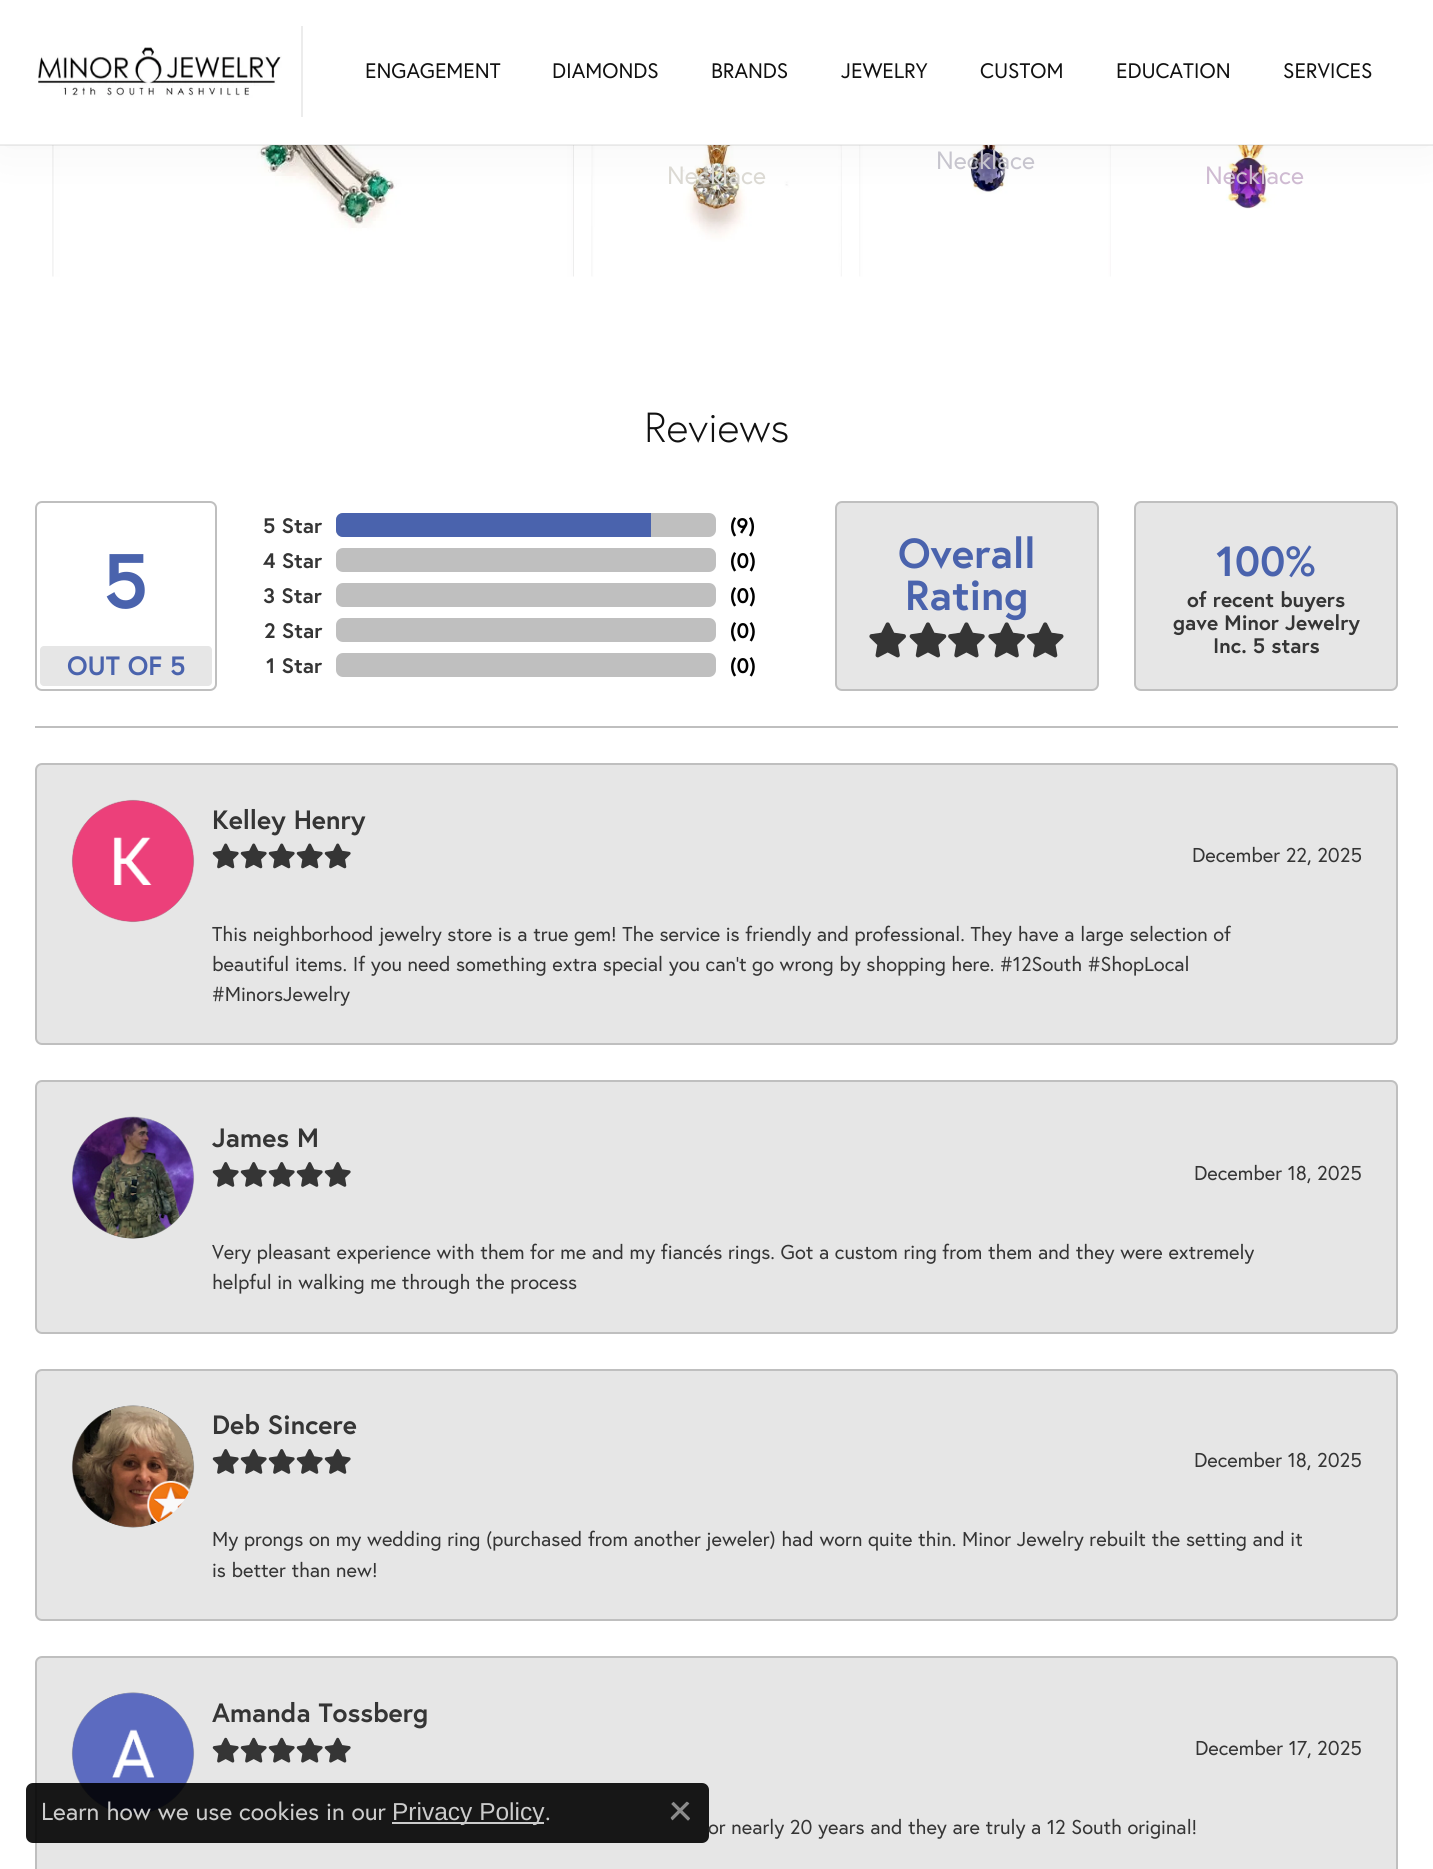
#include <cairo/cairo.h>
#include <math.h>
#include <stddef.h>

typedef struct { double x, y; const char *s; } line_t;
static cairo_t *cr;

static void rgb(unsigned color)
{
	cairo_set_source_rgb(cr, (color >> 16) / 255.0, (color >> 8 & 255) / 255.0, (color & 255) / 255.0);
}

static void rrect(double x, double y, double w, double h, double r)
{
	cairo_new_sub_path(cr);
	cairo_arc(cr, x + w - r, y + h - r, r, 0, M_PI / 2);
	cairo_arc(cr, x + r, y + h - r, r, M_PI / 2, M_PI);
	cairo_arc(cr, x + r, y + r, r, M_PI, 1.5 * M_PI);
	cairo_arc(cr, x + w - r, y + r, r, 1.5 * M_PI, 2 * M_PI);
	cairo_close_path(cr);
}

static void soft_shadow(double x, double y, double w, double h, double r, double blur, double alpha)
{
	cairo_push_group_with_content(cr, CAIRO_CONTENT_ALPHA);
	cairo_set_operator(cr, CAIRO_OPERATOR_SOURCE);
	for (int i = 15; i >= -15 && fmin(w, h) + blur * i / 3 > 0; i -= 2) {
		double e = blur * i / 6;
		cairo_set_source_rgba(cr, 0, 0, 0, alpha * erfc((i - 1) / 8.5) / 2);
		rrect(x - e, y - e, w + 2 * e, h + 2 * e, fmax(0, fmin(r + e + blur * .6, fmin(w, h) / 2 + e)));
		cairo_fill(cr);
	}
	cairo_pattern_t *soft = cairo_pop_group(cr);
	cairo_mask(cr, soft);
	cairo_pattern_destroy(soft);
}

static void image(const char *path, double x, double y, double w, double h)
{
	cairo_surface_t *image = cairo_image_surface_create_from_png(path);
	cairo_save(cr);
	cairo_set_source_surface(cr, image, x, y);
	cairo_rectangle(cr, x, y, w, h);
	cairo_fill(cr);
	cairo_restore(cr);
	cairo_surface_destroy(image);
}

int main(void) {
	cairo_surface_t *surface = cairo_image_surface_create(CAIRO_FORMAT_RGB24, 1433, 1869);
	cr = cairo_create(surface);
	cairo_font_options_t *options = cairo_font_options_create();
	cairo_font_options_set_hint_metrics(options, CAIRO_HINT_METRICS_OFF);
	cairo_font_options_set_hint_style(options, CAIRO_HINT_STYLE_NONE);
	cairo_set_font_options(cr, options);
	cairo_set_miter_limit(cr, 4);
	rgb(0xffffff);
	cairo_paint(cr);
	image("img/2.png", 52, 145, 522, 132);
	image("img/3.png", 859, 145, 252, 132);
	image("img/4.png", 591, 145, 251, 132);
	image("img/5.png", 1178, 145, 159, 64);
	rgb(0x000000);
	soft_shadow(0, 0, 1433, 145, 0, 26, 0.05);
	rgb(0xffffff);
	cairo_rectangle(cr, 0, 0, 1433, 145);
	cairo_fill(cr);
	cairo_set_source_rgba(cr, 0, 0, 0, 0.07);
	cairo_rectangle(cr, 0, 144, 1433, 2);
	cairo_fill(cr);
	rgb(0xececec);
	cairo_rectangle(cr, 301, 26, 2, 91);
	cairo_fill(cr);
	image("img/1.png", 38, 47, 244, 51);
	rrect(36, 502, 180, 188, 6);
	rgb(0xbfbfbf);
	cairo_stroke(cr);
	rgb(0xe6e6e6);
	rrect(40, 646, 172, 40, 4);
	cairo_fill(cr);
	rgb(0xbfbfbf);
	rrect(336, 513, 380, 24, 7);
	cairo_fill(cr);
	rgb(0x4a63ad);
	cairo_new_path(cr);
	cairo_move_to(cr, 343, 513);
	cairo_line_to(cr, 651, 513);
	cairo_line_to(cr, 651, 537);
	cairo_line_to(cr, 343, 537);
	cairo_curve_to(cr, 339, 537, 336, 534, 336, 530);
	cairo_line_to(cr, 336, 520);
	cairo_curve_to(cr, 336, 516, 339, 513, 343, 513);
	cairo_close_path(cr);
	cairo_fill(cr);
	rgb(0xbfbfbf);
	rrect(336, 548, 380, 24, 7);
	cairo_fill(cr);
	rrect(336, 583, 380, 24, 7);
	cairo_fill(cr);
	rrect(336, 618, 380, 24, 7);
	cairo_fill(cr);
	rrect(336, 653, 380, 24, 7);
	cairo_fill(cr);
	rgb(0xe6e6e6);
	rrect(836, 502, 262, 188, 6);
	cairo_fill_preserve(cr);
	rgb(0xbfbfbf);
	cairo_stroke(cr);
	image("img/6.png", 869, 622, 37, 36);
	image("img/7.png", 909, 622, 38, 36);
	image("img/8.png", 948, 622, 37, 36);
	image("img/6.png", 988, 622, 37, 36);
	image("img/9.png", 1026, 622, 38, 36);
	rgb(0xe6e6e6);
	rrect(1135, 502, 262, 188, 6);
	cairo_fill_preserve(cr);
	rgb(0xbfbfbf);
	cairo_stroke(cr);
	cairo_rectangle(cr, 35, 726, 1363, 2);
	cairo_fill(cr);
	rgb(0xe6e6e6);
	rrect(36, 764, 1361, 280, 6);
	cairo_fill_preserve(cr);
	rgb(0xbfbfbf);
	cairo_stroke(cr);
	image("img/10.png", 71, 799, 124, 124);
	image("img/11.png", 212, 843, 27, 26);
	image("img/11.png", 240, 843, 27, 26);
	image("img/11.png", 268, 843, 27, 26);
	image("img/11.png", 296, 843, 27, 26);
	image("img/11.png", 324, 843, 27, 26);
	rgb(0xe6e6e6);
	rrect(36, 1081, 1361, 252, 6);
	cairo_fill_preserve(cr);
	rgb(0xbfbfbf);
	cairo_stroke(cr);
	image("img/12.png", 71, 1116, 124, 123);
	image("img/13.png", 212, 1162, 27, 25);
	image("img/13.png", 240, 1162, 27, 25);
	image("img/13.png", 268, 1162, 27, 25);
	image("img/13.png", 296, 1162, 27, 25);
	image("img/13.png", 324, 1162, 27, 25);
	rgb(0xe6e6e6);
	rrect(36, 1370, 1361, 250, 6);
	cairo_fill_preserve(cr);
	rgb(0xbfbfbf);
	cairo_stroke(cr);
	image("img/14.png", 71, 1405, 124, 123);
	image("img/13.png", 212, 1449, 27, 25);
	image("img/13.png", 240, 1449, 27, 25);
	image("img/13.png", 268, 1449, 27, 25);
	image("img/13.png", 296, 1449, 27, 25);
	image("img/13.png", 324, 1449, 27, 25);
	rgb(0xe6e6e6);
	rrect(36, 1657, 1361, 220, 6);
	cairo_fill_preserve(cr);
	rgb(0xbfbfbf);
	cairo_stroke(cr);
	image("img/15.png", 71, 1692, 124, 123);
	image("img/16.png", 212, 1737, 27, 26);
	image("img/16.png", 240, 1737, 27, 26);
	image("img/16.png", 268, 1737, 27, 26);
	image("img/16.png", 296, 1737, 27, 26);
	image("img/16.png", 324, 1737, 27, 26);
	cairo_set_source_rgba(cr, 0, 0, 0, 0.9);
	rrect(26, 1783, 683, 60, 7);
	cairo_fill(cr);
	rgb(0xcccccc);
	cairo_rectangle(cr, 392, 1822, 152, 2);
	cairo_fill(cr);
	image("img/17.png", 670, 1801, 20, 20);
	cairo_select_font_face(cr, "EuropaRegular", CAIRO_FONT_SLANT_NORMAL, CAIRO_FONT_WEIGHT_NORMAL);
	cairo_set_font_size(cr, 21);
	rgb(0x111111);
	{
		static const line_t items[] = {
			{365, 78, "ENGAGEMENT"},
			{552, 78, "DIAMONDS"},
			{711, 78, "BRANDS"},
			{841, 78, "JEWELRY"},
			{980, 78, "CUSTOM"},
			{1116, 78, "EDUCATION"},
			{1283, 78, "SERVICES"},
		};
		for (size_t i = 0; i < sizeof items / sizeof *items; i++) {
			cairo_move_to(cr, items[i].x, items[i].y);
			cairo_show_text(cr, items[i].s);
		}
	}
	cairo_set_font_size(cr, 25);
	rgb(0xc7c5ce);
	cairo_move_to(cr, 936, 169);
	cairo_show_text(cr, "Necklace");
	rgb(0xdbd9d3);
	cairo_move_to(cr, 667, 184);
	cairo_show_text(cr, "Necklace");
	rgb(0xcfbbd2);
	cairo_move_to(cr, 1205, 184);
	cairo_show_text(cr, "Necklace");
	cairo_select_font_face(cr, "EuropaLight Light", CAIRO_FONT_SLANT_NORMAL, CAIRO_FONT_WEIGHT_NORMAL);
	cairo_set_font_size(cr, 42);
	rgb(0x111111);
	cairo_move_to(cr, 644, 442);
	cairo_show_text(cr, "Reviews");
	cairo_select_font_face(cr, "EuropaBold", CAIRO_FONT_SLANT_NORMAL, CAIRO_FONT_WEIGHT_BOLD);
	cairo_set_font_size(cr, 77);
	rgb(0x4a63ad);
	cairo_move_to(cr, 103, 608);
	cairo_show_text(cr, "5");
	cairo_set_font_size(cr, 26.5);
	cairo_move_to(cr, 67, 675);
	cairo_show_text(cr, "OUT OF 5");
	cairo_set_font_size(cr, 21);
	rgb(0x353535);
	{
		static const line_t items[] = {
			{263, 533, "5 Star"},
			{263, 568, "4 Star"},
			{263, 603, "3 Star"},
			{264, 638, "2 Star"},
			{266, 673, "1 Star"},
		};
		for (size_t i = 0; i < sizeof items / sizeof *items; i++) {
			cairo_move_to(cr, items[i].x, items[i].y);
			cairo_show_text(cr, items[i].s);
		}
	}
	rgb(0x000000);
	{
		static const line_t items[] = {
			{730, 533, "(9)"},
			{730, 568, "(0)"},
			{730, 603, "(0)"},
			{730, 638, "(0)"},
			{730, 673, "(0)"},
		};
		for (size_t i = 0; i < sizeof items / sizeof *items; i++) {
			cairo_move_to(cr, items[i].x, items[i].y);
			cairo_show_text(cr, items[i].s);
		}
	}
	cairo_set_font_size(cr, 42);
	rgb(0x4a63ad);
	{
		static const line_t items[] = {
			{898, 568, "Overall"},
			{905, 610, "Rating"},
			{1216, 576, "100%"},
		};
		for (size_t i = 0; i < sizeof items / sizeof *items; i++) {
			cairo_move_to(cr, items[i].x, items[i].y);
			cairo_show_text(cr, items[i].s);
		}
	}
	cairo_set_font_size(cr, 21);
	rgb(0x353535);
	{
		static const line_t items[] = {
			{1187, 607, "of recent buyers"},
			{1173, 630, "gave Minor Jewelry"},
			{1213, 653, "Inc. 5 stars"},
		};
		for (size_t i = 0; i < sizeof items / sizeof *items; i++) {
			cairo_move_to(cr, items[i].x, items[i].y);
			cairo_show_text(cr, items[i].s);
		}
	}
	cairo_set_font_size(cr, 26.5);
	cairo_move_to(cr, 212, 829);
	cairo_show_text(cr, "Kelley Henry");
	cairo_select_font_face(cr, "EuropaRegular", CAIRO_FONT_SLANT_NORMAL, CAIRO_FONT_WEIGHT_NORMAL);
	cairo_set_font_size(cr, 20.05);
	{
		static const line_t items[] = {
			{1192, 862, "December 22, 2025"},
			{212, 941, "This neighborhood jewelry store is a true gem! The service is friendly and professional. They have a large selection of"},
			{212, 971, "beautiful items. If you need something extra special you can’t go wrong by shopping here. #12South #ShopLocal"},
			{212, 1001, "#MinorsJewelry"},
		};
		for (size_t i = 0; i < sizeof items / sizeof *items; i++) {
			cairo_move_to(cr, items[i].x, items[i].y);
			cairo_show_text(cr, items[i].s);
		}
	}
	cairo_select_font_face(cr, "EuropaBold", CAIRO_FONT_SLANT_NORMAL, CAIRO_FONT_WEIGHT_BOLD);
	cairo_set_font_size(cr, 26.5);
	cairo_move_to(cr, 212, 1147);
	cairo_show_text(cr, "James M");
	cairo_select_font_face(cr, "EuropaRegular", CAIRO_FONT_SLANT_NORMAL, CAIRO_FONT_WEIGHT_NORMAL);
	cairo_set_font_size(cr, 20.05);
	{
		static const line_t items[] = {
			{1194, 1180, "December 18, 2025"},
			{212, 1259, "Very pleasant experience with them for me and my fiancés rings. Got a custom ring from them and they were extremely"},
			{212, 1289, "helpful in walking me through the process"},
		};
		for (size_t i = 0; i < sizeof items / sizeof *items; i++) {
			cairo_move_to(cr, items[i].x, items[i].y);
			cairo_show_text(cr, items[i].s);
		}
	}
	cairo_select_font_face(cr, "EuropaBold", CAIRO_FONT_SLANT_NORMAL, CAIRO_FONT_WEIGHT_BOLD);
	cairo_set_font_size(cr, 26.5);
	cairo_move_to(cr, 212, 1434);
	cairo_show_text(cr, "Deb Sincere");
	cairo_select_font_face(cr, "EuropaRegular", CAIRO_FONT_SLANT_NORMAL, CAIRO_FONT_WEIGHT_NORMAL);
	cairo_set_font_size(cr, 20.05);
	{
		static const line_t items[] = {
			{1194, 1467, "December 18, 2025"},
			{212, 1546, "My prongs on my wedding ring (purchased from another jeweler) had worn quite thin. Minor Jewelry rebuilt the setting and it"},
			{212, 1577, "is better than new!"},
		};
		for (size_t i = 0; i < sizeof items / sizeof *items; i++) {
			cairo_move_to(cr, items[i].x, items[i].y);
			cairo_show_text(cr, items[i].s);
		}
	}
	cairo_select_font_face(cr, "EuropaBold", CAIRO_FONT_SLANT_NORMAL, CAIRO_FONT_WEIGHT_BOLD);
	cairo_set_font_size(cr, 26.5);
	cairo_move_to(cr, 212, 1722);
	cairo_show_text(cr, "Amanda Tossberg");
	cairo_select_font_face(cr, "EuropaRegular", CAIRO_FONT_SLANT_NORMAL, CAIRO_FONT_WEIGHT_NORMAL);
	cairo_set_font_size(cr, 20.05);
	cairo_move_to(cr, 1195, 1755);
	cairo_show_text(cr, "December 17, 2025");
	cairo_move_to(cr, 708, 1834);
	cairo_show_text(cr, "or nearly 20 years and they are truly a 12 South original!");
	cairo_set_font_size(cr, 24.5);
	rgb(0xcccccc);
	cairo_move_to(cr, 41, 1820);
	cairo_show_text(cr, "Learn how we use cookies in our");
	cairo_select_font_face(cr, "Liberation Sans", CAIRO_FONT_SLANT_NORMAL, CAIRO_FONT_WEIGHT_NORMAL);
	cairo_move_to(cr, 392, 1820);
	cairo_show_text(cr, "Privacy Policy");
	cairo_select_font_face(cr, "EuropaRegular", CAIRO_FONT_SLANT_NORMAL, CAIRO_FONT_WEIGHT_NORMAL);
	cairo_move_to(cr, 545, 1820);
	cairo_show_text(cr, ".");
	cairo_surface_write_to_png(surface, "page.png");
	cairo_font_options_destroy(options);
	cairo_destroy(cr);
	cairo_surface_destroy(surface);
	return 0;
}
